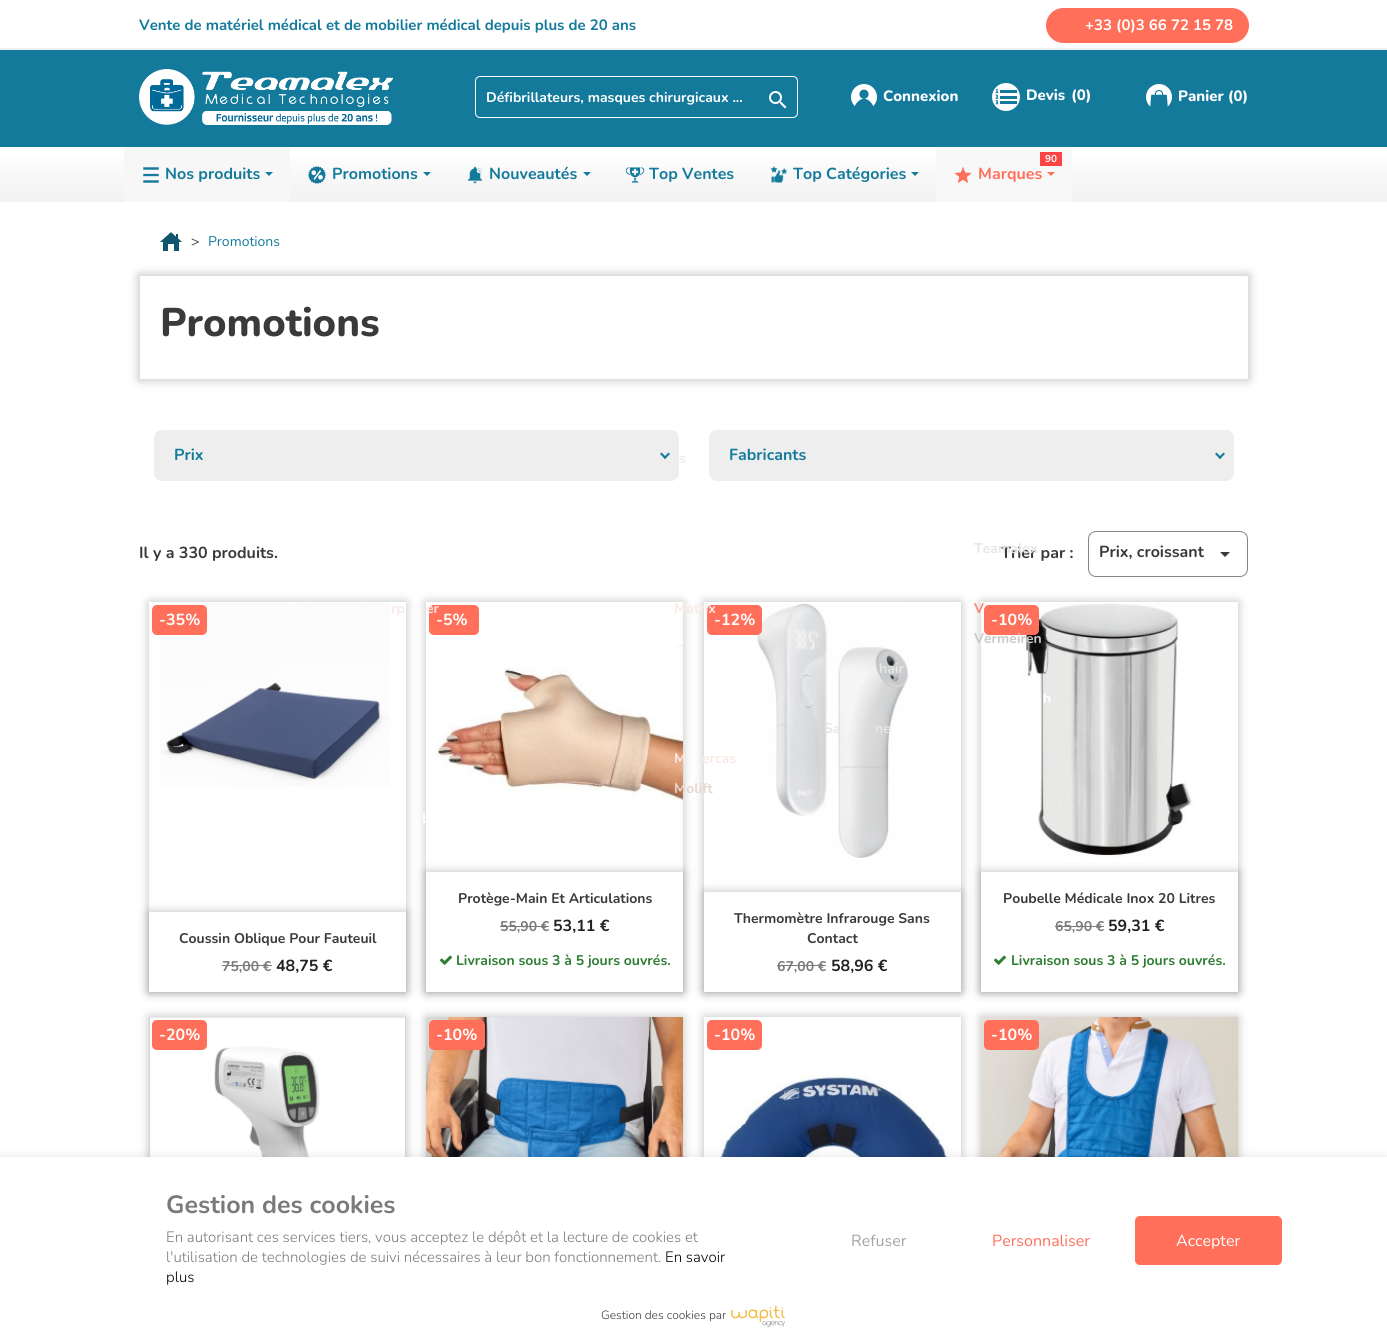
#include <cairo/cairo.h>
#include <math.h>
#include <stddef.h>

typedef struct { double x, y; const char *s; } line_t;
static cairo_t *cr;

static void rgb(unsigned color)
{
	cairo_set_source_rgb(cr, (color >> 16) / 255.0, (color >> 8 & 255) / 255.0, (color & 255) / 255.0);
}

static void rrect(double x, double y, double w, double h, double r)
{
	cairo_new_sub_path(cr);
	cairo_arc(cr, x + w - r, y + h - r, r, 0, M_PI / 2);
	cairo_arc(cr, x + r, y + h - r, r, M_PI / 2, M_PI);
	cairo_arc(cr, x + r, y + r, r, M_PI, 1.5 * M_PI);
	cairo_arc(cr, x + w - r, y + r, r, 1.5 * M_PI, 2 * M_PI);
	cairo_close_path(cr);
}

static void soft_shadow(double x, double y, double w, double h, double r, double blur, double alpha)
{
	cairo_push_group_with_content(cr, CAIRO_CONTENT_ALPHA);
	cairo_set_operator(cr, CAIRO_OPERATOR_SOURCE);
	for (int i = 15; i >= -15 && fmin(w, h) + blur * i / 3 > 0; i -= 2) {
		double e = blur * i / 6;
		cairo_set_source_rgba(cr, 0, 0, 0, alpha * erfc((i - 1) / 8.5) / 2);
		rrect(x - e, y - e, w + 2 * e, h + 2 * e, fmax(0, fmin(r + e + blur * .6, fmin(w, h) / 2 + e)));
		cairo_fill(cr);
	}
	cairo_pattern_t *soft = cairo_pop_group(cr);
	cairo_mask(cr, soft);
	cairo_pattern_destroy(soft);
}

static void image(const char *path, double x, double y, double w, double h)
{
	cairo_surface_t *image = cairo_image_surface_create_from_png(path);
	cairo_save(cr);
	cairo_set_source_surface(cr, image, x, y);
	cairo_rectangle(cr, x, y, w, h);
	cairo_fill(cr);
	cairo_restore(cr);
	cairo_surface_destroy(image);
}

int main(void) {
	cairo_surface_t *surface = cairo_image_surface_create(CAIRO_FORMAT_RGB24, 1387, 1344);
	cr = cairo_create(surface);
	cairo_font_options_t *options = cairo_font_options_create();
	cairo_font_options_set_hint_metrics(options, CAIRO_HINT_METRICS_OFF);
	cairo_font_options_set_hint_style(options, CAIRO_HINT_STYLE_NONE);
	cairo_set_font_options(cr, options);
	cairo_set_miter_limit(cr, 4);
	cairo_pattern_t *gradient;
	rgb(0xffffff);
	cairo_paint(cr);
	rgb(0xf1f1f1);
	cairo_rectangle(cr, 0, 48, 1387, 2);
	cairo_fill(cr);
	rgb(0xff6f59);
	rrect(1046, 8, 203, 35, 17.5);
	cairo_fill(cr);
	rgb(0x147a9c);
	cairo_rectangle(cr, 0, 50, 1387, 97);
	cairo_fill(cr);
	image("img/1.png", 139, 69, 254, 56);
	rrect(475.5, 76.5, 322, 41, 4.5);
	rgb(0xffffff);
	cairo_set_line_width(cr, 1);
	cairo_stroke(cr);
	image("img/2.png", 769, 91, 18, 18);
	image("img/3.png", 851, 84, 26, 23);
	image("img/4.png", 992, 83, 28, 28);
	image("img/5.png", 1146, 84, 26, 23);
	gradient = cairo_pattern_create_linear(694, 147, 694, 202);
	cairo_pattern_add_color_stop_rgba(gradient, 0, 1, 1, 1, 1);
	cairo_pattern_add_color_stop_rgba(gradient, 1, 0.949, 0.949, 0.949, 1);
	cairo_set_source(cr, gradient);
	cairo_pattern_destroy(gradient);
	cairo_rectangle(cr, 0, 158, 1387, 44);
	cairo_fill(cr);
	rgb(0xf8f8f8);
	cairo_rectangle(cr, 936, 147, 136, 55);
	cairo_fill(cr);
	rgb(0xfc4444);
	cairo_rectangle(cr, 1040, 152, 22, 14);
	cairo_fill(cr);
	image("img/6.png", 954, 167, 18, 16);
	rgb(0xff6f59);
	cairo_new_path(cr);
	cairo_move_to(cr, 1047, 172);
	cairo_line_to(cr, 1055, 172);
	cairo_line_to(cr, 1051, 176);
	cairo_close_path(cr);
	cairo_fill(cr);
	image("img/7.png", 467, 166, 16, 18);
	rgb(0x147a9c);
	cairo_new_path(cr);
	cairo_move_to(cr, 583, 172);
	cairo_line_to(cr, 591, 172);
	cairo_line_to(cr, 587, 176);
	cairo_close_path(cr);
	cairo_fill(cr);
	image("img/8.png", 770, 166, 18, 17);
	cairo_new_path(cr);
	cairo_move_to(cr, 911, 172);
	cairo_line_to(cr, 919, 172);
	cairo_line_to(cr, 915, 176);
	cairo_close_path(cr);
	cairo_fill(cr);
	rgb(0xf7f7f7);
	cairo_rectangle(cr, 124, 147, 166, 55);
	cairo_fill(cr);
	image("img/9.png", 143, 167, 16, 16);
	rgb(0x147a9c);
	cairo_new_path(cr);
	cairo_move_to(cr, 265, 172);
	cairo_line_to(cr, 273, 172);
	cairo_line_to(cr, 269, 176);
	cairo_close_path(cr);
	cairo_fill(cr);
	image("img/10.png", 308, 166, 18, 18);
	cairo_new_path(cr);
	cairo_move_to(cr, 423, 172);
	cairo_line_to(cr, 431, 172);
	cairo_line_to(cr, 427, 176);
	cairo_close_path(cr);
	cairo_fill(cr);
	image("img/11.png", 625, 167, 20, 16);
	image("img/12.png", 160, 232, 22, 19);
	cairo_save(cr);
	cairo_set_fill_rule(cr, CAIRO_FILL_RULE_EVEN_ODD);
	cairo_new_path(cr);
	cairo_move_to(cr, 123, 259);
	cairo_line_to(cr, 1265, 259);
	cairo_line_to(cr, 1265, 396);
	cairo_line_to(cr, 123, 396);
	cairo_close_path(cr);
	cairo_move_to(cr, 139, 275);
	cairo_line_to(cr, 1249, 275);
	cairo_line_to(cr, 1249, 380);
	cairo_line_to(cr, 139, 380);
	cairo_close_path(cr);
	cairo_clip(cr);
	rgb(0x000000);
	soft_shadow(139, 275, 1110, 105, 0, 5, 0.25);
	cairo_restore(cr);
	cairo_rectangle(cr, 139.5, 275.5, 1109, 104);
	rgb(0xdfdfdf);
	cairo_stroke(cr);
	rgb(0xeeeeee);
	rrect(154, 430, 525, 51, 8);
	cairo_fill(cr);
	rgb(0x147a9c);
	cairo_new_path(cr);
	cairo_move_to(cr, 668.5, 452.5);
	cairo_line_to(cr, 670, 454);
	cairo_line_to(cr, 665, 459);
	cairo_line_to(cr, 663.5, 457.5);
	cairo_close_path(cr);
	cairo_fill(cr);
	cairo_new_path(cr);
	cairo_move_to(cr, 661.5, 452.5);
	cairo_line_to(cr, 666.5, 457.5);
	cairo_line_to(cr, 665, 459);
	cairo_line_to(cr, 660, 454);
	cairo_close_path(cr);
	cairo_fill(cr);
	rgb(0xeeeeee);
	rrect(709, 430, 525, 51, 8);
	cairo_fill(cr);
	rgb(0x147a9c);
	cairo_new_path(cr);
	cairo_move_to(cr, 1223.5, 452.5);
	cairo_line_to(cr, 1225, 454);
	cairo_line_to(cr, 1220, 459);
	cairo_line_to(cr, 1218.5, 457.5);
	cairo_close_path(cr);
	cairo_fill(cr);
	cairo_new_path(cr);
	cairo_move_to(cr, 1216.5, 452.5);
	cairo_line_to(cr, 1221.5, 457.5);
	cairo_line_to(cr, 1220, 459);
	cairo_line_to(cr, 1215, 454);
	cairo_close_path(cr);
	cairo_fill(cr);
	rrect(1088.5, 531.5, 159, 45, 7.5);
	rgb(0x868686);
	cairo_stroke(cr);
	rgb(0x3a3a3a);
	cairo_new_path(cr);
	cairo_move_to(cr, 1220, 552);
	cairo_line_to(cr, 1230, 552);
	cairo_line_to(cr, 1225, 557);
	cairo_close_path(cr);
	cairo_fill(cr);
	cairo_save(cr);
	cairo_set_fill_rule(cr, CAIRO_FILL_RULE_EVEN_ODD);
	cairo_new_path(cr);
	cairo_move_to(cr, 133, 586);
	cairo_line_to(cr, 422, 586);
	cairo_line_to(cr, 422, 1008);
	cairo_line_to(cr, 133, 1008);
	cairo_close_path(cr);
	cairo_move_to(cr, 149, 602);
	cairo_line_to(cr, 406, 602);
	cairo_line_to(cr, 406, 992);
	cairo_line_to(cr, 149, 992);
	cairo_close_path(cr);
	cairo_clip(cr);
	rgb(0x000000);
	soft_shadow(149, 602, 257, 390, 0, 5, 0.25);
	cairo_restore(cr);
	image("img/13.png", 160, 603, 230, 184);
	rgb(0xff6f59);
	rrect(152, 605, 55, 30, 5);
	cairo_fill(cr);
	cairo_save(cr);
	cairo_set_fill_rule(cr, CAIRO_FILL_RULE_EVEN_ODD);
	cairo_new_path(cr);
	cairo_move_to(cr, 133, 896);
	cairo_line_to(cr, 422, 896);
	cairo_line_to(cr, 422, 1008);
	cairo_line_to(cr, 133, 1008);
	cairo_close_path(cr);
	cairo_move_to(cr, 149, 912);
	cairo_line_to(cr, 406, 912);
	cairo_line_to(cr, 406, 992);
	cairo_line_to(cr, 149, 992);
	cairo_close_path(cr);
	cairo_clip(cr);
	rgb(0x000000);
	soft_shadow(149, 912, 257, 80, 0, 5, 0.25);
	cairo_restore(cr);
	rgb(0x7a7a7a);
	cairo_rectangle(cr, 222, 965, 50, 1);
	cairo_fill(cr);
	cairo_save(cr);
	cairo_set_fill_rule(cr, CAIRO_FILL_RULE_EVEN_ODD);
	cairo_new_path(cr);
	cairo_move_to(cr, 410, 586);
	cairo_line_to(cr, 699, 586);
	cairo_line_to(cr, 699, 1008);
	cairo_line_to(cr, 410, 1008);
	cairo_close_path(cr);
	cairo_move_to(cr, 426, 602);
	cairo_line_to(cr, 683, 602);
	cairo_line_to(cr, 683, 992);
	cairo_line_to(cr, 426, 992);
	cairo_close_path(cr);
	cairo_clip(cr);
	rgb(0x000000);
	soft_shadow(426, 602, 257, 390, 0, 5, 0.25);
	cairo_restore(cr);
	rgb(0xff6f59);
	rrect(429, 605, 50, 30, 5);
	cairo_fill(cr);
	image("img/14.png", 434, 644, 249, 157);
	cairo_save(cr);
	cairo_set_fill_rule(cr, CAIRO_FILL_RULE_EVEN_ODD);
	cairo_new_path(cr);
	cairo_move_to(cr, 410, 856);
	cairo_line_to(cr, 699, 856);
	cairo_line_to(cr, 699, 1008);
	cairo_line_to(cr, 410, 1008);
	cairo_close_path(cr);
	cairo_move_to(cr, 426, 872);
	cairo_line_to(cr, 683, 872);
	cairo_line_to(cr, 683, 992);
	cairo_line_to(cr, 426, 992);
	cairo_close_path(cr);
	cairo_clip(cr);
	rgb(0x000000);
	soft_shadow(426, 872, 257, 120, 0, 5, 0.25);
	cairo_restore(cr);
	rgb(0x7a7a7a);
	cairo_rectangle(cr, 500, 926, 49, 1);
	cairo_fill(cr);
	image("img/15.png", 440, 955, 12, 10);
	cairo_save(cr);
	cairo_set_fill_rule(cr, CAIRO_FILL_RULE_EVEN_ODD);
	cairo_new_path(cr);
	cairo_move_to(cr, 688, 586);
	cairo_line_to(cr, 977, 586);
	cairo_line_to(cr, 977, 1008);
	cairo_line_to(cr, 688, 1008);
	cairo_close_path(cr);
	cairo_move_to(cr, 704, 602);
	cairo_line_to(cr, 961, 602);
	cairo_line_to(cr, 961, 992);
	cairo_line_to(cr, 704, 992);
	cairo_close_path(cr);
	cairo_clip(cr);
	rgb(0x000000);
	soft_shadow(704, 602, 257, 390, 0, 5, 0.25);
	cairo_restore(cr);
	image("img/16.png", 757, 604, 152, 254);
	rgb(0xff6f59);
	rrect(707, 605, 55, 30, 5);
	cairo_fill(cr);
	cairo_save(cr);
	cairo_set_fill_rule(cr, CAIRO_FILL_RULE_EVEN_ODD);
	cairo_new_path(cr);
	cairo_move_to(cr, 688, 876);
	cairo_line_to(cr, 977, 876);
	cairo_line_to(cr, 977, 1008);
	cairo_line_to(cr, 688, 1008);
	cairo_close_path(cr);
	cairo_move_to(cr, 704, 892);
	cairo_line_to(cr, 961, 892);
	cairo_line_to(cr, 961, 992);
	cairo_line_to(cr, 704, 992);
	cairo_close_path(cr);
	cairo_clip(cr);
	rgb(0x000000);
	soft_shadow(704, 892, 257, 100, 0, 5, 0.25);
	cairo_restore(cr);
	rgb(0x7a7a7a);
	cairo_rectangle(cr, 777, 965, 49, 1);
	cairo_fill(cr);
	cairo_save(cr);
	cairo_set_fill_rule(cr, CAIRO_FILL_RULE_EVEN_ODD);
	cairo_new_path(cr);
	cairo_move_to(cr, 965, 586);
	cairo_line_to(cr, 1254, 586);
	cairo_line_to(cr, 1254, 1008);
	cairo_line_to(cr, 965, 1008);
	cairo_close_path(cr);
	cairo_move_to(cr, 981, 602);
	cairo_line_to(cr, 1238, 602);
	cairo_line_to(cr, 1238, 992);
	cairo_line_to(cr, 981, 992);
	cairo_close_path(cr);
	cairo_clip(cr);
	rgb(0x000000);
	soft_shadow(981, 602, 257, 390, 0, 5, 0.25);
	cairo_restore(cr);
	image("img/17.png", 1022, 603, 172, 254);
	rgb(0xff6f59);
	rrect(984, 605, 55, 30, 5);
	cairo_fill(cr);
	cairo_save(cr);
	cairo_set_fill_rule(cr, CAIRO_FILL_RULE_EVEN_ODD);
	cairo_new_path(cr);
	cairo_move_to(cr, 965, 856);
	cairo_line_to(cr, 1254, 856);
	cairo_line_to(cr, 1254, 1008);
	cairo_line_to(cr, 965, 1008);
	cairo_close_path(cr);
	cairo_move_to(cr, 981, 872);
	cairo_line_to(cr, 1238, 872);
	cairo_line_to(cr, 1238, 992);
	cairo_line_to(cr, 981, 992);
	cairo_close_path(cr);
	cairo_clip(cr);
	rgb(0x000000);
	soft_shadow(981, 872, 257, 120, 0, 5, 0.25);
	cairo_restore(cr);
	rgb(0x7a7a7a);
	cairo_rectangle(cr, 1055, 926, 49, 1);
	cairo_fill(cr);
	image("img/15.png", 994, 955, 12, 10);
	cairo_save(cr);
	cairo_set_fill_rule(cr, CAIRO_FILL_RULE_EVEN_ODD);
	cairo_new_path(cr);
	cairo_move_to(cr, 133, 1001);
	cairo_line_to(cr, 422, 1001);
	cairo_line_to(cr, 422, 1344);
	cairo_line_to(cr, 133, 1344);
	cairo_close_path(cr);
	cairo_move_to(cr, 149, 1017);
	cairo_line_to(cr, 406, 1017);
	cairo_line_to(cr, 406, 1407);
	cairo_line_to(cr, 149, 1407);
	cairo_close_path(cr);
	cairo_clip(cr);
	rgb(0x000000);
	soft_shadow(149, 1017, 257, 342, 0, 5, 0.25);
	cairo_restore(cr);
	image("img/18.png", 149, 1017, 257, 140);
	rgb(0xff6f59);
	rrect(152, 1020, 55, 30, 5);
	cairo_fill(cr);
	rgb(0x000000);
	soft_shadow(426, 1017, 257, 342, 0, 5, 0.25);
	image("img/19.png", 426, 1017, 257, 140);
	rgb(0xff6f59);
	rrect(429, 1020, 56, 30, 5);
	cairo_fill(cr);
	cairo_save(cr);
	cairo_set_fill_rule(cr, CAIRO_FILL_RULE_EVEN_ODD);
	cairo_new_path(cr);
	cairo_move_to(cr, 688, 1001);
	cairo_line_to(cr, 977, 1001);
	cairo_line_to(cr, 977, 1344);
	cairo_line_to(cr, 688, 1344);
	cairo_close_path(cr);
	cairo_move_to(cr, 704, 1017);
	cairo_line_to(cr, 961, 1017);
	cairo_line_to(cr, 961, 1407);
	cairo_line_to(cr, 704, 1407);
	cairo_close_path(cr);
	cairo_clip(cr);
	rgb(0x000000);
	soft_shadow(704, 1017, 257, 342, 0, 5, 0.25);
	cairo_restore(cr);
	rrect(707, 1020, 55, 30, 5);
	cairo_fill(cr);
	image("img/20.png", 704, 1075, 255, 82);
	rgb(0x000000);
	soft_shadow(981, 1017, 257, 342, 0, 5, 0.25);
	image("img/21.png", 981, 1017, 257, 140);
	rgb(0xff6f59);
	rrect(984, 1020, 55, 30, 5);
	cairo_fill(cr);
	rgb(0x000000);
	soft_shadow(0, 1157, 1387, 187, 0, 5, 0.1);
	rgb(0xffffff);
	cairo_rectangle(cr, 0, 1157, 1387, 187);
	cairo_fill(cr);
	rgb(0xff6f59);
	rrect(1135, 1216, 147, 49, 5);
	cairo_fill(cr);
	image("img/22.png", 731, 1305, 55, 23);
	cairo_select_font_face(cr, "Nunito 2 ExtraLight", CAIRO_FONT_SLANT_NORMAL, CAIRO_FONT_WEIGHT_NORMAL);
	cairo_set_font_size(cr, 15);
	rgb(0x147a9c);
	cairo_move_to(cr, 139, 30);
	cairo_show_text(cr, "Vente de matériel médical et de mobilier médical depuis plus de 20 ans");
	rgb(0xffffff);
	cairo_move_to(cr, 1085, 30);
	cairo_show_text(cr, "+33 (0)3 66 72 15 78");
	cairo_set_font_size(cr, 14);
	cairo_move_to(cr, 486, 102);
	cairo_show_text(cr, "Défibrillateurs, masques chirurgicaux ...");
	cairo_select_font_face(cr, "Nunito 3 ExtraLight", CAIRO_FONT_SLANT_NORMAL, CAIRO_FONT_WEIGHT_NORMAL);
	cairo_set_font_size(cr, 15);
	{
		static const line_t items[] = {
			{883, 101, "Connexion"},
			{1026, 100, "Devis"},
			{1071, 100, "(0)"},
			{1178, 101, "Panier (0)"},
		};
		for (size_t i = 0; i < sizeof items / sizeof *items; i++) {
			cairo_move_to(cr, items[i].x, items[i].y);
			cairo_show_text(cr, items[i].s);
		}
	}
	cairo_select_font_face(cr, "Nunito 2 ExtraLight", CAIRO_FONT_SLANT_NORMAL, CAIRO_FONT_WEIGHT_NORMAL);
	cairo_set_font_size(cr, 10);
	cairo_move_to(cr, 1045, 162);
	cairo_show_text(cr, "90");
	cairo_set_font_size(cr, 16);
	rgb(0xff6f59);
	cairo_move_to(cr, 978, 179);
	cairo_show_text(cr, "Marques");
	cairo_set_font_size(cr, 14);
	rgb(0xfae9e6);
	cairo_move_to(cr, 391, 613);
	cairo_show_text(cr, "rp");
	cairo_move_to(cr, 426, 613);
	cairo_show_text(cr, "er");
	rgb(0xffffff);
	cairo_move_to(cr, 422, 823);
	cairo_show_text(cr, "L");
	rgb(0xfae9e6);
	{
		static const line_t items[] = {
			{674, 613, "Matrix"},
			{674, 763, "M"},
			{702, 763, "ercas"},
		};
		for (size_t i = 0; i < sizeof items / sizeof *items; i++) {
			cairo_move_to(cr, items[i].x, items[i].y);
			cairo_show_text(cr, items[i].s);
		}
	}
	rgb(0xe8d7ce);
	cairo_move_to(cr, 674, 793);
	cairo_show_text(cr, "Molift");
	rgb(0xe5e6e6);
	{
		static const line_t items[] = {
			{879, 673, "hair"},
			{824, 733, "Sa"},
			{875, 733, "ne"},
		};
		for (size_t i = 0; i < sizeof items / sizeof *items; i++) {
			cairo_move_to(cr, items[i].x, items[i].y);
			cairo_show_text(cr, items[i].s);
		}
	}
	rgb(0xfd8674);
	cairo_move_to(cr, 974, 613);
	cairo_show_text(cr, "V");
	rgb(0xccc9c8);
	cairo_move_to(cr, 974, 643);
	cairo_show_text(cr, "Vermeiren");
	rgb(0xffffff);
	cairo_move_to(cr, 1043, 703);
	cairo_show_text(cr, "h");
	cairo_set_font_size(cr, 16);
	rgb(0x147a9c);
	{
		static const line_t items[] = {
			{489, 179, "Nouveautés"},
			{793, 179, "Top Catégories"},
			{165, 179, "Nos produits"},
		};
		for (size_t i = 0; i < sizeof items / sizeof *items; i++) {
			cairo_move_to(cr, items[i].x, items[i].y);
			cairo_show_text(cr, items[i].s);
		}
	}
	cairo_set_font_size(cr, 14);
	rgb(0xecedee);
	cairo_move_to(cr, 679, 463);
	cairo_show_text(cr, "s");
	cairo_set_font_size(cr, 16);
	rgb(0x147a9c);
	cairo_move_to(cr, 332, 179);
	cairo_show_text(cr, "Promotions");
	cairo_move_to(cr, 649, 179);
	cairo_show_text(cr, "Top Ventes");
	cairo_select_font_face(cr, "Nunito ExtraLight", CAIRO_FONT_SLANT_NORMAL, CAIRO_FONT_WEIGHT_NORMAL);
	cairo_set_font_size(cr, 14);
	rgb(0x3a3a3a);
	cairo_move_to(cr, 191, 246);
	cairo_show_text(cr, ">");
	rgb(0x147a9c);
	cairo_move_to(cr, 208, 246);
	cairo_show_text(cr, "Promotions");
	cairo_select_font_face(cr, "Nunito 3 ExtraLight", CAIRO_FONT_SLANT_NORMAL, CAIRO_FONT_WEIGHT_NORMAL);
	cairo_set_font_size(cr, 40);
	rgb(0x3a3a3a);
	cairo_move_to(cr, 160, 336);
	cairo_show_text(cr, "Promotions");
	cairo_select_font_face(cr, "Nunito 2 ExtraLight", CAIRO_FONT_SLANT_NORMAL, CAIRO_FONT_WEIGHT_NORMAL);
	cairo_set_font_size(cr, 16);
	rgb(0x147a9c);
	cairo_move_to(cr, 174, 460);
	cairo_show_text(cr, "Prix");
	cairo_move_to(cr, 729, 460);
	cairo_show_text(cr, "Fabricants");
	rgb(0x3a3a3a);
	cairo_move_to(cr, 139, 558);
	cairo_show_text(cr, "Il y a 330 produits.");
	cairo_move_to(cr, 1001, 558);
	cairo_show_text(cr, "Trier par :");
	cairo_set_font_size(cr, 14);
	rgb(0xe5e6e6);
	cairo_move_to(cr, 974, 553);
	cairo_show_text(cr, "Teamalex");
	cairo_set_font_size(cr, 16);
	rgb(0x3a3a3a);
	cairo_move_to(cr, 1099, 557);
	cairo_show_text(cr, "Prix, croissant");
	rgb(0xffffff);
	cairo_move_to(cr, 159, 625);
	cairo_show_text(cr, "-35%");
	cairo_set_font_size(cr, 14);
	rgb(0x3a3a3a);
	cairo_move_to(cr, 179, 943);
	cairo_show_text(cr, "Coussin Oblique Pour Fauteuil");
	rgb(0x7a7a7a);
	cairo_move_to(cr, 222, 971);
	cairo_show_text(cr, "75,00 €");
	cairo_set_font_size(cr, 16);
	rgb(0x232323);
	cairo_move_to(cr, 276, 971);
	cairo_show_text(cr, "48,75 €");
	rgb(0xffffff);
	cairo_move_to(cr, 436, 625);
	cairo_show_text(cr, "-5%");
	cairo_set_font_size(cr, 14);
	rgb(0x3a3a3a);
	cairo_move_to(cr, 458, 903);
	cairo_show_text(cr, "Protège-Main Et Articulations");
	rgb(0x7a7a7a);
	cairo_move_to(cr, 500, 931);
	cairo_show_text(cr, "55,90 €");
	cairo_set_font_size(cr, 16);
	rgb(0x232323);
	cairo_move_to(cr, 553, 931);
	cairo_show_text(cr, "53,11 €");
	cairo_set_font_size(cr, 14);
	rgb(0x2e7d32);
	cairo_move_to(cr, 456, 965);
	cairo_show_text(cr, "Livraison sous 3 à 5 jours ouvrés.");
	cairo_set_font_size(cr, 16);
	rgb(0xffffff);
	cairo_move_to(cr, 714, 625);
	cairo_show_text(cr, "-12%");
	cairo_set_font_size(cr, 14);
	rgb(0x3a3a3a);
	cairo_move_to(cr, 734, 923);
	cairo_show_text(cr, "Thermomètre Infrarouge Sans");
	cairo_move_to(cr, 807, 943);
	cairo_show_text(cr, "Contact");
	rgb(0x7a7a7a);
	cairo_move_to(cr, 777, 971);
	cairo_show_text(cr, "67,00 €");
	cairo_set_font_size(cr, 16);
	rgb(0x232323);
	cairo_move_to(cr, 831, 971);
	cairo_show_text(cr, "58,96 €");
	rgb(0xffffff);
	cairo_move_to(cr, 991, 625);
	cairo_show_text(cr, "-10%");
	cairo_set_font_size(cr, 14);
	rgb(0x3a3a3a);
	cairo_move_to(cr, 1003, 903);
	cairo_show_text(cr, "Poubelle Médicale Inox 20 Litres");
	rgb(0x7a7a7a);
	cairo_move_to(cr, 1055, 931);
	cairo_show_text(cr, "65,90 €");
	cairo_set_font_size(cr, 16);
	rgb(0x232323);
	cairo_move_to(cr, 1108, 931);
	cairo_show_text(cr, "59,31 €");
	cairo_set_font_size(cr, 14);
	rgb(0x2e7d32);
	cairo_move_to(cr, 1011, 965);
	cairo_show_text(cr, "Livraison sous 3 à 5 jours ouvrés.");
	cairo_set_font_size(cr, 16);
	rgb(0xffffff);
	{
		static const line_t items[] = {
			{159, 1040, "-20%"},
			{436, 1040, "-10%"},
			{714, 1040, "-10%"},
			{991, 1040, "-10%"},
		};
		for (size_t i = 0; i < sizeof items / sizeof *items; i++) {
			cairo_move_to(cr, items[i].x, items[i].y);
			cairo_show_text(cr, items[i].s);
		}
	}
	cairo_set_font_size(cr, 25);
	rgb(0x7a7a7a);
	cairo_move_to(cr, 166, 1213);
	cairo_show_text(cr, "Gestion des cookies");
	cairo_select_font_face(cr, "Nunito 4 ExtraLight", CAIRO_FONT_SLANT_NORMAL, CAIRO_FONT_WEIGHT_NORMAL);
	cairo_set_font_size(cr, 15);
	cairo_move_to(cr, 166, 1242);
	cairo_show_text(cr, "En autorisant ces services tiers, vous acceptez le dépôt et la lecture de cookies et");
	cairo_move_to(cr, 166, 1262);
	cairo_show_text(cr, "l'utilisation de technologies de suivi nécessaires à leur bon fonctionnement.");
	rgb(0x000000);
	cairo_move_to(cr, 665, 1262);
	cairo_show_text(cr, "En savoir");
	cairo_move_to(cr, 166, 1282);
	cairo_show_text(cr, "plus");
	cairo_select_font_face(cr, "Nunito ExtraLight", CAIRO_FONT_SLANT_NORMAL, CAIRO_FONT_WEIGHT_NORMAL);
	cairo_set_font_size(cr, 16);
	rgb(0xa4a4a4);
	cairo_move_to(cr, 851, 1246);
	cairo_show_text(cr, "Refuser");
	rgb(0xff6f59);
	cairo_move_to(cr, 992, 1246);
	cairo_show_text(cr, "Personnaliser");
	rgb(0xffffff);
	cairo_move_to(cr, 1176, 1246);
	cairo_show_text(cr, "Accepter");
	cairo_select_font_face(cr, "Nunito 4 ExtraLight", CAIRO_FONT_SLANT_NORMAL, CAIRO_FONT_WEIGHT_NORMAL);
	cairo_set_font_size(cr, 12);
	rgb(0x3a3a3a);
	cairo_move_to(cr, 601, 1319);
	cairo_show_text(cr, "Gestion des cookies par");
	cairo_surface_write_to_png(surface, "page.png");
	cairo_font_options_destroy(options);
	cairo_destroy(cr);
	cairo_surface_destroy(surface);
	return 0;
}
